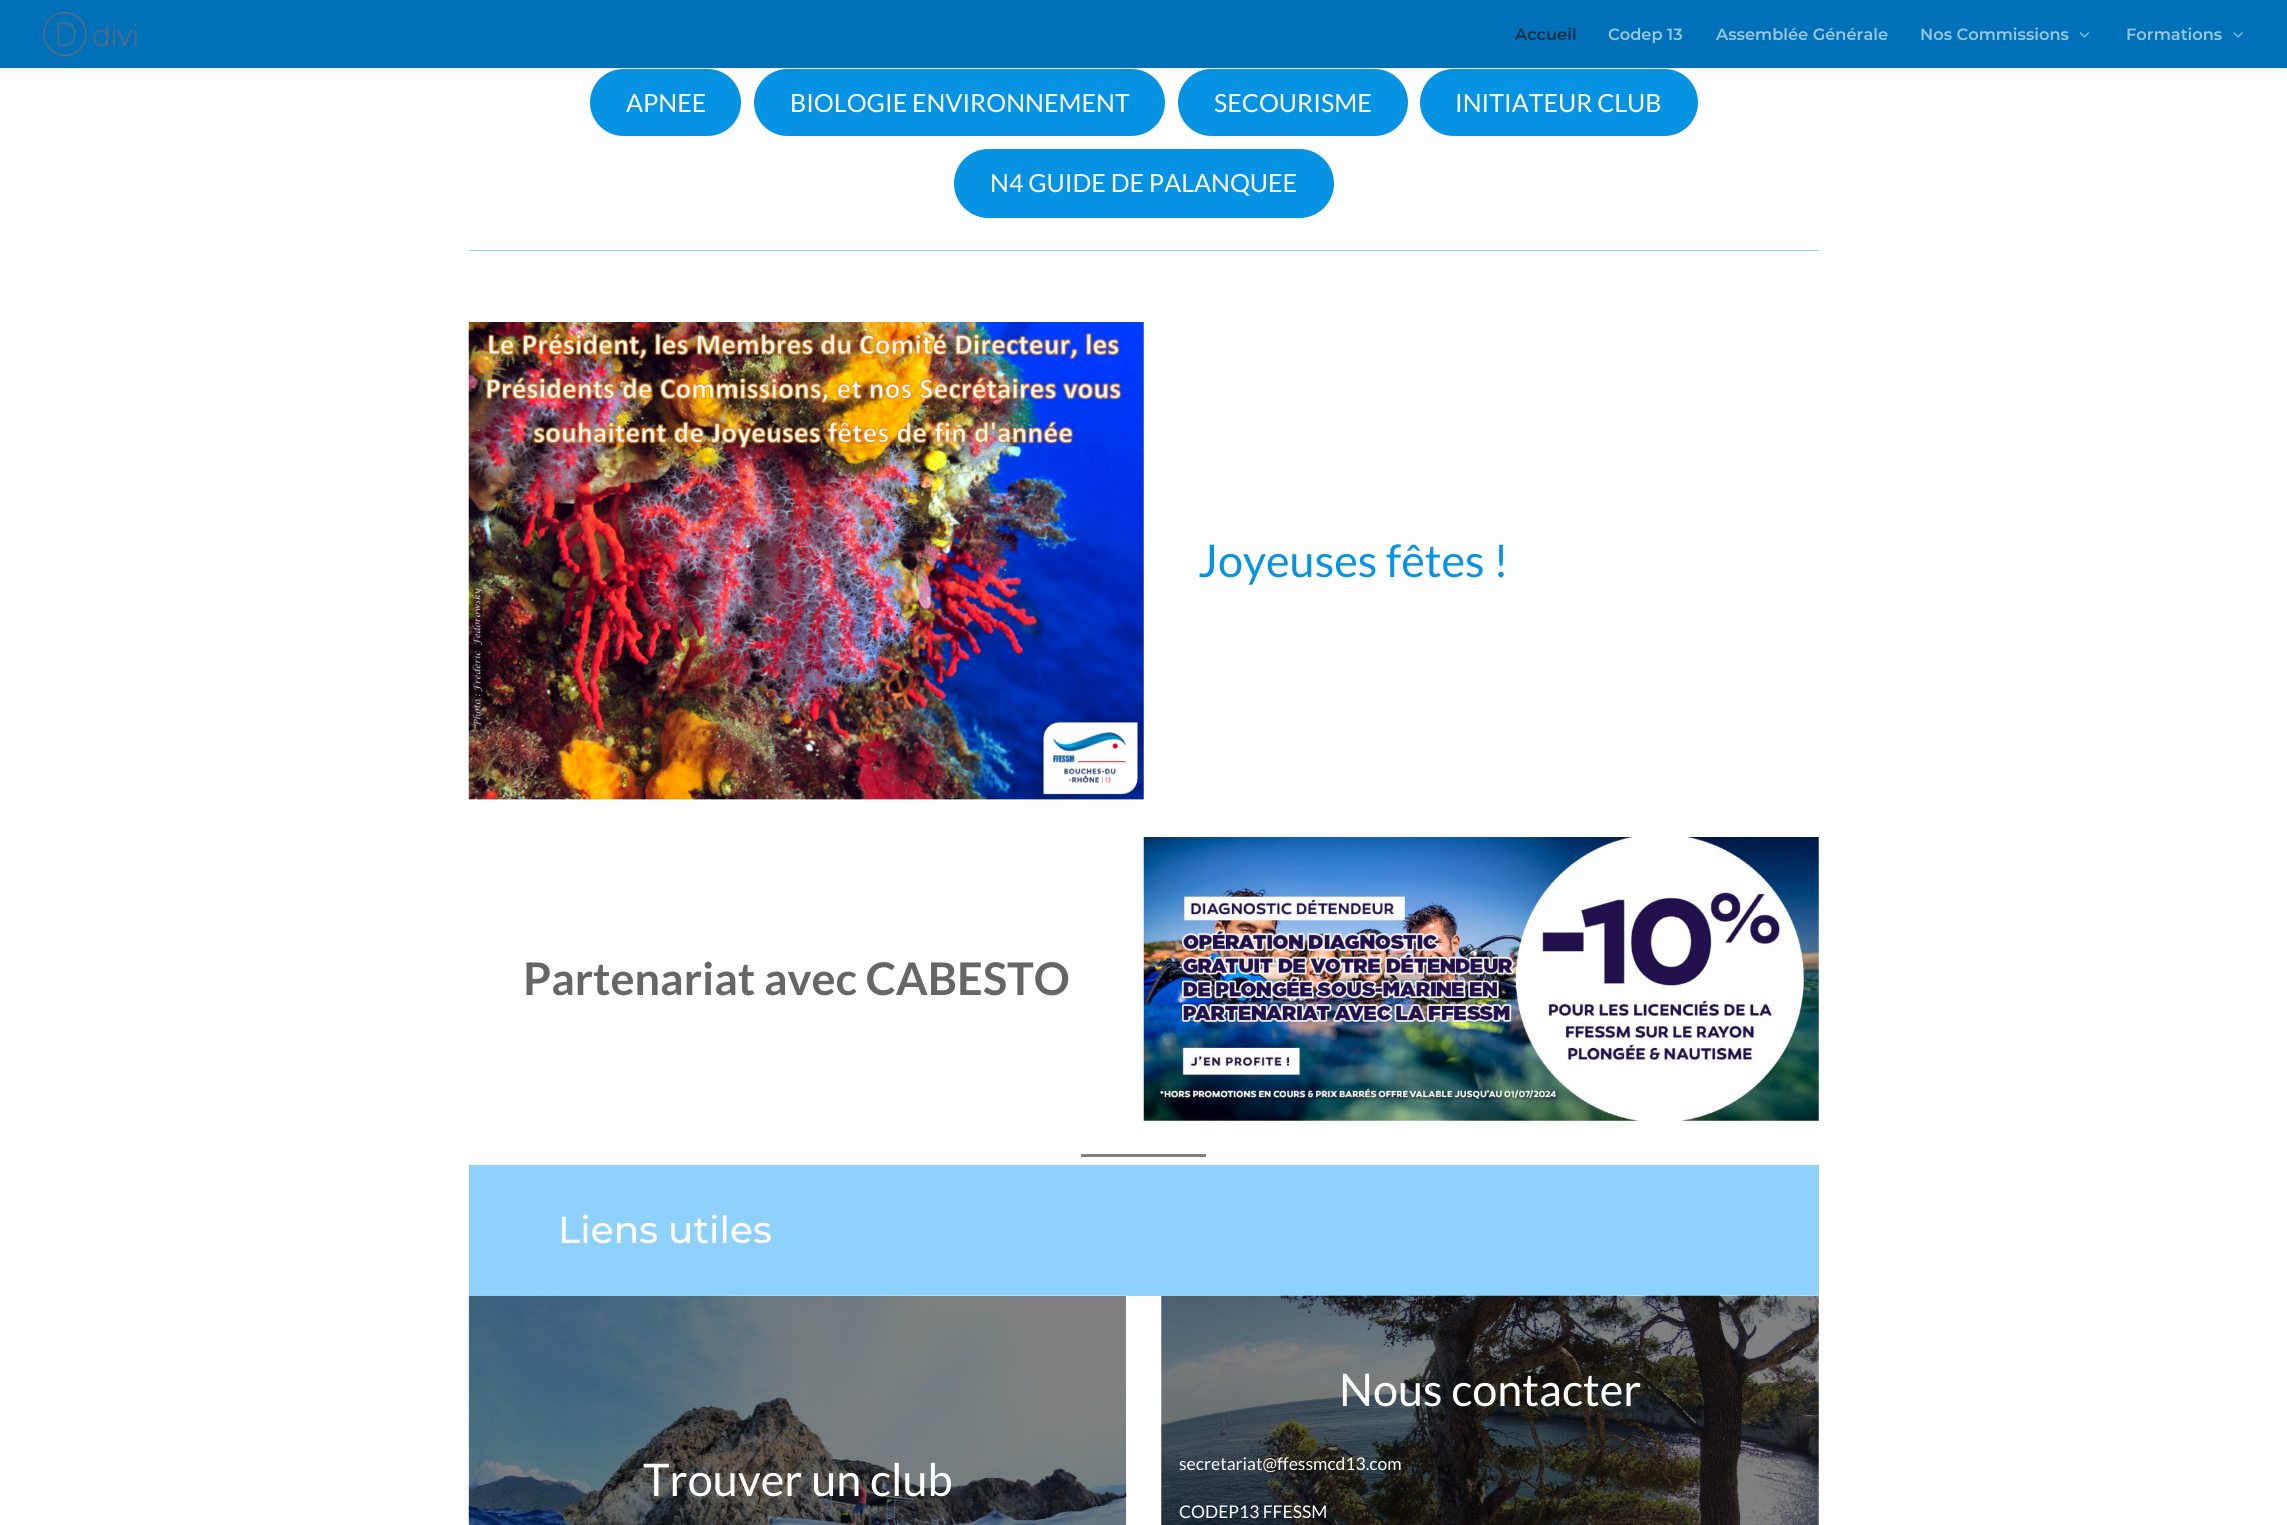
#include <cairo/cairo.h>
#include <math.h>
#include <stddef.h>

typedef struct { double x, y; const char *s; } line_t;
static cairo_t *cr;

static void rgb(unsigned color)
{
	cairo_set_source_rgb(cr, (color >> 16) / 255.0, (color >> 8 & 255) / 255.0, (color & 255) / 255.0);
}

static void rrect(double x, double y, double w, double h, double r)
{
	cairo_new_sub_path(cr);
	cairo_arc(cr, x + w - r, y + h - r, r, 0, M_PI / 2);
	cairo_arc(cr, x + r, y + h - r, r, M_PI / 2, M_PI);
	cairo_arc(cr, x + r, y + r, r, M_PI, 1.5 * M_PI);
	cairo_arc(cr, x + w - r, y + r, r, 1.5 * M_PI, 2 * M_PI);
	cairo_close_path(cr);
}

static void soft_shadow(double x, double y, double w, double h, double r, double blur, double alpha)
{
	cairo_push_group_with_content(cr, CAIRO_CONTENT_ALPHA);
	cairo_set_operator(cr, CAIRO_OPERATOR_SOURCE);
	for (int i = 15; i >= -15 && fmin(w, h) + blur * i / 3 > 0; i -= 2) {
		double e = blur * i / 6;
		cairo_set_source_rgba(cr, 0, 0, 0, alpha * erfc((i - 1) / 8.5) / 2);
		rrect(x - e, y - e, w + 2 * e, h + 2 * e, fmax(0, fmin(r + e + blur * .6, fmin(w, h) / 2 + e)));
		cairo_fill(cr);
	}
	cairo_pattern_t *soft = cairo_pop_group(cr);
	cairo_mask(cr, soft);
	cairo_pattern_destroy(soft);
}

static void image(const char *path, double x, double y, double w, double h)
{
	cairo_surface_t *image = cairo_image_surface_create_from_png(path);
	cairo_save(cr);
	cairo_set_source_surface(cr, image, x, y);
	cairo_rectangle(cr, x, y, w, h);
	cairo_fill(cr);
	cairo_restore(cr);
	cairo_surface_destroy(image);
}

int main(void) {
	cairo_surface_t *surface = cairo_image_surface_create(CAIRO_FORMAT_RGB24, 2287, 1525);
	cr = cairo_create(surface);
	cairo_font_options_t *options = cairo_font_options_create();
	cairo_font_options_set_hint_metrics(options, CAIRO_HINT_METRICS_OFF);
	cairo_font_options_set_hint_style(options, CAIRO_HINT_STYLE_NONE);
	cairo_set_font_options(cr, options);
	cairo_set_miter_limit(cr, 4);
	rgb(0xffffff);
	cairo_paint(cr);
	rgb(0x0693e3);
	rrect(590, 69, 151, 67, 33.5);
	cairo_fill(cr);
	rrect(754, 69, 411, 67, 33.5);
	cairo_fill(cr);
	rrect(1178, 69, 230, 67, 33.5);
	cairo_fill(cr);
	rrect(1420, 69, 278, 67, 33.5);
	cairo_fill(cr);
	rgb(0x000000);
	soft_shadow(0, 0, 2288, 68, 0, 4.5, 0.1);
	rgb(0x0070b8);
	cairo_rectangle(cr, 0, 0, 2287, 68);
	cairo_fill(cr);
	image("img/1.png", 42, 11, 96, 46);
	image("img/2.png", 2079, 32, 10, 6);
	image("img/3.png", 2233, 32, 10, 6);
	rgb(0x0693e3);
	rrect(954, 149, 380, 69, 34.5);
	cairo_fill(cr);
	rgb(0x8ed1fc);
	cairo_rectangle(cr, 469, 250, 1350, 1);
	cairo_fill(cr);
	image("img/4.png", 468, 322, 676, 478);
	image("img/5.png", 1143, 837, 676, 284);
	rgb(0x808080);
	cairo_rectangle(cr, 1081, 1154, 125, 3);
	cairo_fill(cr);
	rgb(0x8ed1fc);
	cairo_rectangle(cr, 469, 1165, 1350, 131);
	cairo_fill(cr);
	image("img/6.png", 468, 1295, 659, 230);
	image("img/7.png", 1161, 1295, 658, 230);
	cairo_select_font_face(cr, "Montserrat SemiBold", CAIRO_FONT_SLANT_NORMAL, CAIRO_FONT_WEIGHT_NORMAL);
	cairo_set_font_size(cr, 16.25);
	rgb(0x042d47);
	cairo_move_to(cr, 1515, 40);
	cairo_show_text(cr, "Accueil");
	rgb(0x99c6e3);
	{
		static const line_t items[] = {
			{1608, 40, "Codep 13"},
			{1716, 40, "Assemblée Générale"},
			{1920, 40, "Nos Commissions"},
			{2126, 40, "Formations"},
		};
		for (size_t i = 0; i < sizeof items / sizeof *items; i++) {
			cairo_move_to(cr, items[i].x, items[i].y);
			cairo_show_text(cr, items[i].s);
		}
	}
	cairo_select_font_face(cr, "Lato", CAIRO_FONT_SLANT_NORMAL, CAIRO_FONT_WEIGHT_NORMAL);
	cairo_set_font_size(cr, 25);
	rgb(0xffffff);
	{
		static const line_t items[] = {
			{626, 112, "APNEE"},
			{790, 112, "BIOLOGIE ENVIRONNEMENT"},
			{1214, 112, "SECOURISME"},
			{1455, 112, "INITIATEUR CLUB"},
			{990, 192, "N4 GUIDE DE PALANQUEE"},
		};
		for (size_t i = 0; i < sizeof items / sizeof *items; i++) {
			cairo_move_to(cr, items[i].x, items[i].y);
			cairo_show_text(cr, items[i].s);
		}
	}
	cairo_set_font_size(cr, 45);
	rgb(0x0693e3);
	cairo_move_to(cr, 1198, 577);
	cairo_show_text(cr, "Joyeuses fêtes !");
	cairo_select_font_face(cr, "Lato", CAIRO_FONT_SLANT_NORMAL, CAIRO_FONT_WEIGHT_BOLD);
	rgb(0x666666);
	cairo_move_to(cr, 523, 995);
	cairo_show_text(cr, "Partenariat avec CABESTO");
	cairo_select_font_face(cr, "Montserrat Medium", CAIRO_FONT_SLANT_NORMAL, CAIRO_FONT_WEIGHT_NORMAL);
	cairo_set_font_size(cr, 37.5);
	rgb(0xffffff);
	cairo_move_to(cr, 558, 1243);
	cairo_show_text(cr, "Liens utiles");
	cairo_select_font_face(cr, "Lato", CAIRO_FONT_SLANT_NORMAL, CAIRO_FONT_WEIGHT_NORMAL);
	cairo_set_font_size(cr, 45);
	cairo_move_to(cr, 643, 1496);
	cairo_show_text(cr, "Trouver un club");
	cairo_move_to(cr, 1339, 1406);
	cairo_show_text(cr, "Nous contacter");
	cairo_set_font_size(cr, 17.5);
	cairo_move_to(cr, 1179, 1470);
	cairo_show_text(cr, "secretariat@ffessmcd13.com");
	cairo_move_to(cr, 1179, 1518);
	cairo_show_text(cr, "CODEP13 FFESSM");
	cairo_surface_write_to_png(surface, "page.png");
	cairo_font_options_destroy(options);
	cairo_destroy(cr);
	cairo_surface_destroy(surface);
	return 0;
}
